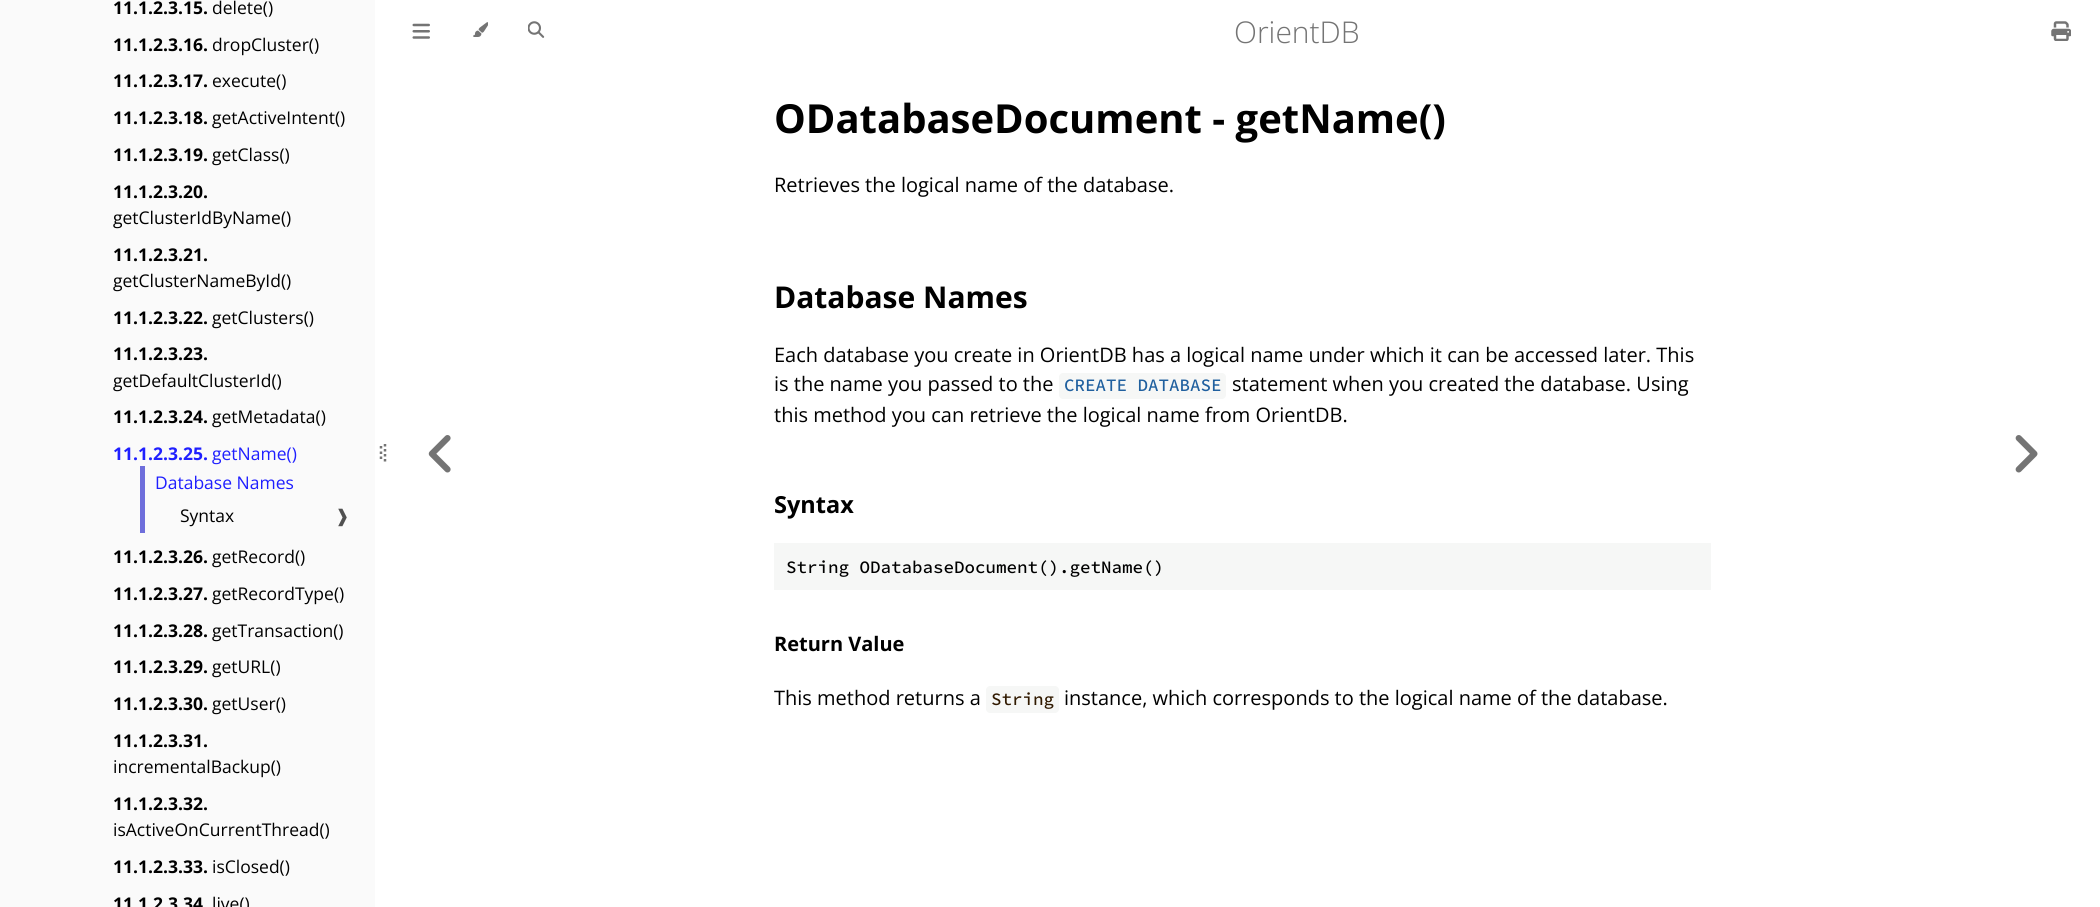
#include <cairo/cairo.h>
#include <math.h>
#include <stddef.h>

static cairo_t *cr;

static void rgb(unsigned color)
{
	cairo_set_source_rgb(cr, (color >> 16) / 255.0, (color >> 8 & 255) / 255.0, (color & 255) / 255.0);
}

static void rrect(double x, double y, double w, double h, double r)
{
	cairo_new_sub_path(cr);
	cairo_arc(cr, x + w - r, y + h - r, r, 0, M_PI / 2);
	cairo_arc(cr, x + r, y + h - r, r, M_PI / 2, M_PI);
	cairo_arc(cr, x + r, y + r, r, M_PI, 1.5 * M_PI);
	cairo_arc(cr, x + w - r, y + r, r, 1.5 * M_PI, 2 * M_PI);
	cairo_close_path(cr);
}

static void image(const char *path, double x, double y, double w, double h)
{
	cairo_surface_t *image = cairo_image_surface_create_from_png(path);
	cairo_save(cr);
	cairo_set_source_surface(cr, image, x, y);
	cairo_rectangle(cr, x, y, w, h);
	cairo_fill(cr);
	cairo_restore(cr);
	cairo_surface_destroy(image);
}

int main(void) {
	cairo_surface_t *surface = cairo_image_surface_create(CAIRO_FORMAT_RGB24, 2100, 907);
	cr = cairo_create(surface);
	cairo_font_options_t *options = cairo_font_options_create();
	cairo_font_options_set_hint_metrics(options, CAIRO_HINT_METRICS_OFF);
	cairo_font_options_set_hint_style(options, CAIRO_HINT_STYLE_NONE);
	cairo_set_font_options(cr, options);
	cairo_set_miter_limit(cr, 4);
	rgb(0xffffff);
	cairo_paint(cr);
	rgb(0xfafafa);
	cairo_rectangle(cr, 0, 0, 375, 907);
	cairo_fill(cr);
	rgb(0x6e6edb);
	cairo_rectangle(cr, 140, 466, 5, 67);
	cairo_fill(cr);
	cairo_new_path(cr);
	cairo_move_to(cr, 381, 446);
	cairo_line_to(cr, 381, 448.5);
	cairo_move_to(cr, 381, 451.5);
	cairo_line_to(cr, 381, 454);
	cairo_move_to(cr, 381, 456.5);
	cairo_line_to(cr, 381, 459);
	rgb(0x747474);
	cairo_set_line_width(cr, 2.5);
	cairo_stroke(cr);
	cairo_new_path(cr);
	cairo_move_to(cr, 385, 444);
	cairo_line_to(cr, 385, 464);
	cairo_set_dash(cr, (double[]){2.5, 2.5}, 2, 0);
	cairo_stroke(cr);
	image("img/1.png", 412, 23, 18, 16);
	image("img/2.png", 473, 22, 15, 15);
	image("img/3.png", 528, 21, 17, 17);
	image("img/4.png", 2051, 21, 20, 20);
	rgb(0xf6f7f6);
	rrect(1059, 373, 167, 26, 4);
	cairo_fill(cr);
	cairo_rectangle(cr, 774, 543, 937, 47);
	cairo_fill(cr);
	rrect(986, 686, 73, 27, 4);
	cairo_fill(cr);
	image("img/5.png", 428, 435, 23, 38);
	image("img/6.png", 2015, 435, 23, 38);
	cairo_select_font_face(cr, "Open Sans", CAIRO_FONT_SLANT_NORMAL, CAIRO_FONT_WEIGHT_BOLD);
	cairo_set_font_size(cr, 17.5);
	rgb(0x000000);
	cairo_move_to(cr, 113, 14);
	cairo_show_text(cr, "11.1.2.3.15.");
	cairo_select_font_face(cr, "Open Sans", CAIRO_FONT_SLANT_NORMAL, CAIRO_FONT_WEIGHT_NORMAL);
	cairo_move_to(cr, 212, 14);
	cairo_show_text(cr, "delete()");
	cairo_select_font_face(cr, "Open Sans", CAIRO_FONT_SLANT_NORMAL, CAIRO_FONT_WEIGHT_BOLD);
	cairo_move_to(cr, 113, 51);
	cairo_show_text(cr, "11.1.2.3.16.");
	cairo_select_font_face(cr, "Open Sans", CAIRO_FONT_SLANT_NORMAL, CAIRO_FONT_WEIGHT_NORMAL);
	cairo_move_to(cr, 212, 51);
	cairo_show_text(cr, "dropCluster()");
	cairo_select_font_face(cr, "Open Sans", CAIRO_FONT_SLANT_NORMAL, CAIRO_FONT_WEIGHT_BOLD);
	cairo_move_to(cr, 113, 87);
	cairo_show_text(cr, "11.1.2.3.17.");
	cairo_select_font_face(cr, "Open Sans", CAIRO_FONT_SLANT_NORMAL, CAIRO_FONT_WEIGHT_NORMAL);
	cairo_move_to(cr, 212, 87);
	cairo_show_text(cr, "execute()");
	cairo_select_font_face(cr, "Open Sans", CAIRO_FONT_SLANT_NORMAL, CAIRO_FONT_WEIGHT_BOLD);
	cairo_move_to(cr, 113, 124);
	cairo_show_text(cr, "11.1.2.3.18.");
	cairo_select_font_face(cr, "Open Sans", CAIRO_FONT_SLANT_NORMAL, CAIRO_FONT_WEIGHT_NORMAL);
	cairo_move_to(cr, 212, 124);
	cairo_show_text(cr, "getActiveIntent()");
	cairo_select_font_face(cr, "Open Sans", CAIRO_FONT_SLANT_NORMAL, CAIRO_FONT_WEIGHT_BOLD);
	cairo_move_to(cr, 113, 161);
	cairo_show_text(cr, "11.1.2.3.19.");
	cairo_select_font_face(cr, "Open Sans", CAIRO_FONT_SLANT_NORMAL, CAIRO_FONT_WEIGHT_NORMAL);
	cairo_move_to(cr, 212, 161);
	cairo_show_text(cr, "getClass()");
	cairo_select_font_face(cr, "Open Sans", CAIRO_FONT_SLANT_NORMAL, CAIRO_FONT_WEIGHT_BOLD);
	cairo_move_to(cr, 113, 198);
	cairo_show_text(cr, "11.1.2.3.20.");
	cairo_select_font_face(cr, "Open Sans", CAIRO_FONT_SLANT_NORMAL, CAIRO_FONT_WEIGHT_NORMAL);
	cairo_move_to(cr, 113, 224);
	cairo_show_text(cr, "getClusterIdByName()");
	cairo_select_font_face(cr, "Open Sans", CAIRO_FONT_SLANT_NORMAL, CAIRO_FONT_WEIGHT_BOLD);
	cairo_move_to(cr, 113, 261);
	cairo_show_text(cr, "11.1.2.3.21.");
	cairo_select_font_face(cr, "Open Sans", CAIRO_FONT_SLANT_NORMAL, CAIRO_FONT_WEIGHT_NORMAL);
	cairo_move_to(cr, 113, 287);
	cairo_show_text(cr, "getClusterNameById()");
	cairo_select_font_face(cr, "Open Sans", CAIRO_FONT_SLANT_NORMAL, CAIRO_FONT_WEIGHT_BOLD);
	cairo_move_to(cr, 113, 324);
	cairo_show_text(cr, "11.1.2.3.22.");
	cairo_select_font_face(cr, "Open Sans", CAIRO_FONT_SLANT_NORMAL, CAIRO_FONT_WEIGHT_NORMAL);
	cairo_move_to(cr, 212, 324);
	cairo_show_text(cr, "getClusters()");
	cairo_select_font_face(cr, "Open Sans", CAIRO_FONT_SLANT_NORMAL, CAIRO_FONT_WEIGHT_BOLD);
	cairo_move_to(cr, 113, 360);
	cairo_show_text(cr, "11.1.2.3.23.");
	cairo_select_font_face(cr, "Open Sans", CAIRO_FONT_SLANT_NORMAL, CAIRO_FONT_WEIGHT_NORMAL);
	cairo_move_to(cr, 113, 387);
	cairo_show_text(cr, "getDefaultClusterId()");
	cairo_select_font_face(cr, "Open Sans", CAIRO_FONT_SLANT_NORMAL, CAIRO_FONT_WEIGHT_BOLD);
	cairo_move_to(cr, 113, 423);
	cairo_show_text(cr, "11.1.2.3.24.");
	cairo_select_font_face(cr, "Open Sans", CAIRO_FONT_SLANT_NORMAL, CAIRO_FONT_WEIGHT_NORMAL);
	cairo_move_to(cr, 212, 423);
	cairo_show_text(cr, "getMetadata()");
	cairo_select_font_face(cr, "Open Sans", CAIRO_FONT_SLANT_NORMAL, CAIRO_FONT_WEIGHT_BOLD);
	rgb(0x1f1fff);
	cairo_move_to(cr, 113, 460);
	cairo_show_text(cr, "11.1.2.3.25.");
	cairo_select_font_face(cr, "Open Sans", CAIRO_FONT_SLANT_NORMAL, CAIRO_FONT_WEIGHT_NORMAL);
	cairo_move_to(cr, 212, 460);
	cairo_show_text(cr, "getName()");
	cairo_move_to(cr, 155, 489);
	cairo_show_text(cr, "Database Names");
	rgb(0x000000);
	cairo_move_to(cr, 180, 522);
	cairo_show_text(cr, "Syntax");
	cairo_select_font_face(cr, "DejaVu Sans", CAIRO_FONT_SLANT_NORMAL, CAIRO_FONT_WEIGHT_NORMAL);
	rgb(0x505050);
	cairo_move_to(cr, 335, 522);
	cairo_show_text(cr, "❱");
	cairo_select_font_face(cr, "Open Sans", CAIRO_FONT_SLANT_NORMAL, CAIRO_FONT_WEIGHT_BOLD);
	rgb(0x000000);
	cairo_move_to(cr, 113, 563);
	cairo_show_text(cr, "11.1.2.3.26.");
	cairo_select_font_face(cr, "Open Sans", CAIRO_FONT_SLANT_NORMAL, CAIRO_FONT_WEIGHT_NORMAL);
	cairo_move_to(cr, 212, 563);
	cairo_show_text(cr, "getRecord()");
	cairo_select_font_face(cr, "Open Sans", CAIRO_FONT_SLANT_NORMAL, CAIRO_FONT_WEIGHT_BOLD);
	cairo_move_to(cr, 113, 600);
	cairo_show_text(cr, "11.1.2.3.27.");
	cairo_select_font_face(cr, "Open Sans", CAIRO_FONT_SLANT_NORMAL, CAIRO_FONT_WEIGHT_NORMAL);
	cairo_move_to(cr, 212, 600);
	cairo_show_text(cr, "getRecordType()");
	cairo_select_font_face(cr, "Open Sans", CAIRO_FONT_SLANT_NORMAL, CAIRO_FONT_WEIGHT_BOLD);
	cairo_move_to(cr, 113, 637);
	cairo_show_text(cr, "11.1.2.3.28.");
	cairo_select_font_face(cr, "Open Sans", CAIRO_FONT_SLANT_NORMAL, CAIRO_FONT_WEIGHT_NORMAL);
	cairo_move_to(cr, 212, 637);
	cairo_show_text(cr, "getTransaction()");
	cairo_select_font_face(cr, "Open Sans", CAIRO_FONT_SLANT_NORMAL, CAIRO_FONT_WEIGHT_BOLD);
	cairo_move_to(cr, 113, 673);
	cairo_show_text(cr, "11.1.2.3.29.");
	cairo_select_font_face(cr, "Open Sans", CAIRO_FONT_SLANT_NORMAL, CAIRO_FONT_WEIGHT_NORMAL);
	cairo_move_to(cr, 212, 673);
	cairo_show_text(cr, "getURL()");
	cairo_select_font_face(cr, "Open Sans", CAIRO_FONT_SLANT_NORMAL, CAIRO_FONT_WEIGHT_BOLD);
	cairo_move_to(cr, 113, 710);
	cairo_show_text(cr, "11.1.2.3.30.");
	cairo_select_font_face(cr, "Open Sans", CAIRO_FONT_SLANT_NORMAL, CAIRO_FONT_WEIGHT_NORMAL);
	cairo_move_to(cr, 212, 710);
	cairo_show_text(cr, "getUser()");
	cairo_select_font_face(cr, "Open Sans", CAIRO_FONT_SLANT_NORMAL, CAIRO_FONT_WEIGHT_BOLD);
	cairo_move_to(cr, 113, 747);
	cairo_show_text(cr, "11.1.2.3.31.");
	cairo_select_font_face(cr, "Open Sans", CAIRO_FONT_SLANT_NORMAL, CAIRO_FONT_WEIGHT_NORMAL);
	cairo_move_to(cr, 113, 773);
	cairo_show_text(cr, "incrementalBackup()");
	cairo_select_font_face(cr, "Open Sans", CAIRO_FONT_SLANT_NORMAL, CAIRO_FONT_WEIGHT_BOLD);
	cairo_move_to(cr, 113, 810);
	cairo_show_text(cr, "11.1.2.3.32.");
	cairo_select_font_face(cr, "Open Sans", CAIRO_FONT_SLANT_NORMAL, CAIRO_FONT_WEIGHT_NORMAL);
	cairo_move_to(cr, 113, 836);
	cairo_show_text(cr, "isActiveOnCurrentThread()");
	cairo_select_font_face(cr, "Open Sans", CAIRO_FONT_SLANT_NORMAL, CAIRO_FONT_WEIGHT_BOLD);
	cairo_move_to(cr, 113, 873);
	cairo_show_text(cr, "11.1.2.3.33.");
	cairo_select_font_face(cr, "Open Sans", CAIRO_FONT_SLANT_NORMAL, CAIRO_FONT_WEIGHT_NORMAL);
	cairo_move_to(cr, 212, 873);
	cairo_show_text(cr, "isClosed()");
	cairo_select_font_face(cr, "Open Sans", CAIRO_FONT_SLANT_NORMAL, CAIRO_FONT_WEIGHT_BOLD);
	cairo_move_to(cr, 113, 910);
	cairo_show_text(cr, "11.1.2.3.34");
	cairo_select_font_face(cr, "Open Sans", CAIRO_FONT_SLANT_NORMAL, CAIRO_FONT_WEIGHT_NORMAL);
	cairo_move_to(cr, 212, 910);
	cairo_show_text(cr, "live()");
	cairo_select_font_face(cr, "Open Sans Light", CAIRO_FONT_SLANT_NORMAL, CAIRO_FONT_WEIGHT_NORMAL);
	cairo_set_font_size(cr, 30);
	rgb(0x747474);
	cairo_move_to(cr, 1234, 43);
	cairo_show_text(cr, "OrientDB");
	cairo_select_font_face(cr, "Open Sans", CAIRO_FONT_SLANT_NORMAL, CAIRO_FONT_WEIGHT_BOLD);
	cairo_set_font_size(cr, 40);
	rgb(0x000000);
	cairo_move_to(cr, 774, 133);
	cairo_show_text(cr, "ODatabaseDocument - getName()");
	cairo_select_font_face(cr, "Open Sans", CAIRO_FONT_SLANT_NORMAL, CAIRO_FONT_WEIGHT_NORMAL);
	cairo_set_font_size(cr, 20);
	cairo_move_to(cr, 774, 192);
	cairo_show_text(cr, "Retrieves the logical name of the database.");
	cairo_select_font_face(cr, "Open Sans", CAIRO_FONT_SLANT_NORMAL, CAIRO_FONT_WEIGHT_BOLD);
	cairo_set_font_size(cr, 30);
	cairo_move_to(cr, 774, 308);
	cairo_show_text(cr, "Database Names");
	cairo_select_font_face(cr, "Open Sans", CAIRO_FONT_SLANT_NORMAL, CAIRO_FONT_WEIGHT_NORMAL);
	cairo_set_font_size(cr, 20);
	cairo_move_to(cr, 774, 362);
	cairo_show_text(cr, "Each database you create in OrientDB has a logical name under which it can be accessed later. This");
	cairo_move_to(cr, 774, 391);
	cairo_show_text(cr, "is the name you passed to the");
	cairo_select_font_face(cr, "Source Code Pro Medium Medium", CAIRO_FONT_SLANT_NORMAL, CAIRO_FONT_WEIGHT_NORMAL);
	cairo_set_font_size(cr, 17.5);
	rgb(0x20609f);
	cairo_move_to(cr, 1064, 391);
	cairo_show_text(cr, "CREATE DATABASE");
	cairo_select_font_face(cr, "Open Sans", CAIRO_FONT_SLANT_NORMAL, CAIRO_FONT_WEIGHT_NORMAL);
	cairo_set_font_size(cr, 20);
	rgb(0x000000);
	cairo_move_to(cr, 1232, 391);
	cairo_show_text(cr, "statement when you created the database. Using");
	cairo_move_to(cr, 774, 422);
	cairo_show_text(cr, "this method you can retrieve the logical name from OrientDB.");
	cairo_select_font_face(cr, "Open Sans", CAIRO_FONT_SLANT_NORMAL, CAIRO_FONT_WEIGHT_BOLD);
	cairo_set_font_size(cr, 23.5);
	cairo_move_to(cr, 774, 513);
	cairo_show_text(cr, "Syntax");
	cairo_select_font_face(cr, "Source Code Pro Medium Medium", CAIRO_FONT_SLANT_NORMAL, CAIRO_FONT_WEIGHT_NORMAL);
	cairo_set_font_size(cr, 17.5);
	cairo_move_to(cr, 786, 573);
	cairo_show_text(cr, "String ODatabaseDocument().getName()");
	cairo_select_font_face(cr, "Open Sans", CAIRO_FONT_SLANT_NORMAL, CAIRO_FONT_WEIGHT_BOLD);
	cairo_set_font_size(cr, 20);
	cairo_move_to(cr, 774, 651);
	cairo_show_text(cr, "Return Value");
	cairo_select_font_face(cr, "Open Sans", CAIRO_FONT_SLANT_NORMAL, CAIRO_FONT_WEIGHT_NORMAL);
	cairo_move_to(cr, 774, 705);
	cairo_show_text(cr, "This method returns a");
	cairo_select_font_face(cr, "Source Code Pro Medium Medium", CAIRO_FONT_SLANT_NORMAL, CAIRO_FONT_WEIGHT_NORMAL);
	cairo_set_font_size(cr, 17.5);
	rgb(0x301900);
	cairo_move_to(cr, 991, 705);
	cairo_show_text(cr, "String");
	cairo_select_font_face(cr, "Open Sans", CAIRO_FONT_SLANT_NORMAL, CAIRO_FONT_WEIGHT_NORMAL);
	cairo_set_font_size(cr, 20);
	rgb(0x000000);
	cairo_move_to(cr, 1064, 705);
	cairo_show_text(cr, "instance, which corresponds to the logical name of the database.");
	cairo_surface_write_to_png(surface, "page.png");
	cairo_font_options_destroy(options);
	cairo_destroy(cr);
	cairo_surface_destroy(surface);
	return 0;
}
